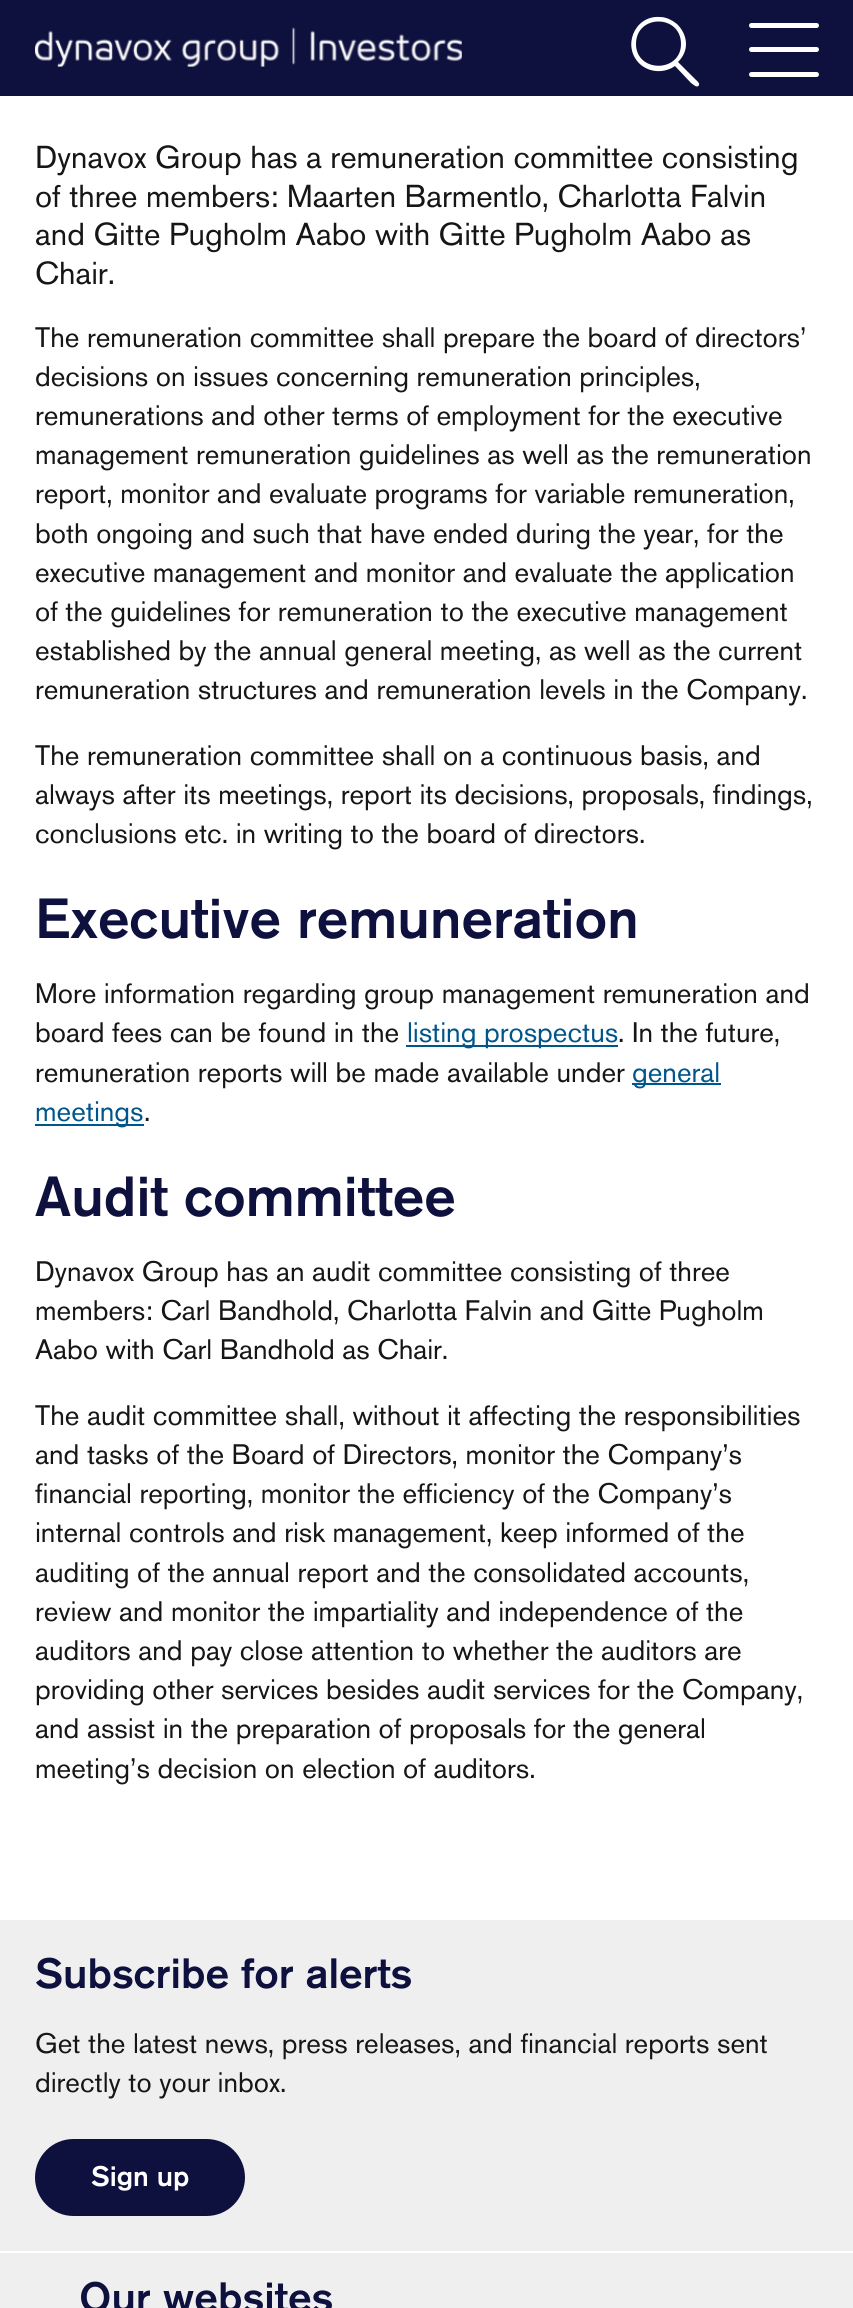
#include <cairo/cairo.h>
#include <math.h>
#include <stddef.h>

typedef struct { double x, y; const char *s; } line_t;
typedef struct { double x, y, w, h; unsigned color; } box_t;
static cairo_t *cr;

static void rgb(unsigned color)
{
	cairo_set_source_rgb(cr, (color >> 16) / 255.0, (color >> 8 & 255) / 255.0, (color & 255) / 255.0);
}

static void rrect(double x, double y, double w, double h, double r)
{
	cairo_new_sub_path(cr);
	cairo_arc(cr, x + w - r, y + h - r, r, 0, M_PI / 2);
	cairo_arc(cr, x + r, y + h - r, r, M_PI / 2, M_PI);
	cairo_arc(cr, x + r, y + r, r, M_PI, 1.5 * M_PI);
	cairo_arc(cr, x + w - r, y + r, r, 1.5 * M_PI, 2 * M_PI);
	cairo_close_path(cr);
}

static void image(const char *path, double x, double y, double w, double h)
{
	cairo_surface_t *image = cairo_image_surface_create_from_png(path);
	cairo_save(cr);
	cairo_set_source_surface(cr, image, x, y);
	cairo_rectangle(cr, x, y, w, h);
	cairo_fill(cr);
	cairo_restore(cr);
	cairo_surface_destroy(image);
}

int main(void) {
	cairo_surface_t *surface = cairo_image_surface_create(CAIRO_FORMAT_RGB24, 853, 2308);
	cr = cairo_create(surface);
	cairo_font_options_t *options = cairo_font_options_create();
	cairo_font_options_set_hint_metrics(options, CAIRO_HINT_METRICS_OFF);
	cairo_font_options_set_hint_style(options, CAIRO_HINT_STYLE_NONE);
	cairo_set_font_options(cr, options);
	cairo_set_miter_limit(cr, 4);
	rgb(0xffffff);
	cairo_paint(cr);
	rgb(0x0e103e);
	cairo_rectangle(cr, 0, 0, 853, 96);
	cairo_fill(cr);
	image("img/1.png", 35, 27, 427, 40);
	rgb(0xffffff);
	cairo_new_path(cr);
	cairo_move_to(cr, 678, 62);
	cairo_curve_to(cr, 683, 57, 686, 51, 686, 44);
	cairo_curve_to(cr, 686, 36, 682, 29, 677, 24);
	cairo_curve_to(cr, 672, 20, 666, 17, 660, 17);
	cairo_curve_to(cr, 634, 15, 621, 48, 641, 65);
	cairo_curve_to(cr, 651, 73, 665, 73, 675, 66);
	cairo_line_to(cr, 691, 83);
	cairo_curve_to(cr, 693, 84, 697, 89, 699, 85);
	cairo_curve_to(cr, 700, 83, 696, 80, 695, 79);
	cairo_close_path(cr);
	cairo_move_to(cr, 636, 44);
	cairo_curve_to(cr, 636, 14, 681, 14, 681, 44);
	cairo_curve_to(cr, 681, 73, 636, 73, 636, 44);
	cairo_close_path(cr);
	cairo_fill(cr);
	rrect(749, 23, 70, 5, 2.5);
	cairo_fill(cr);
	rrect(749, 47, 70, 5, 2.5);
	cairo_fill(cr);
	rrect(749, 72, 70, 5, 2.5);
	cairo_fill(cr);
	{
		static const box_t items[] = {
			{406, 1045, 212, 2, 0x00558a},
			{632, 1083, 89, 2, 0x00558a},
			{35, 1124, 109, 2, 0x00558a},
			{0, 1920, 853, 388, 0xefeff0},
		};
		for (size_t i = 0; i < sizeof items / sizeof *items; i++) {
			rgb(items[i].color);
			cairo_rectangle(cr, items[i].x, items[i].y, items[i].w, items[i].h);
			cairo_fill(cr);
		}
	}
	rgb(0x0e103e);
	rrect(37, 2141, 206, 73, 36.5);
	cairo_fill_preserve(cr);
	cairo_set_line_width(cr, 4);
	cairo_stroke(cr);
	rgb(0xffffff);
	cairo_rectangle(cr, 0, 2251, 853, 2);
	cairo_fill(cr);
	cairo_select_font_face(cr, "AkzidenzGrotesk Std", CAIRO_FONT_SLANT_NORMAL, CAIRO_FONT_WEIGHT_NORMAL);
	cairo_set_font_size(cr, 31.5);
	rgb(0x161616);
	{
		static const line_t items[] = {
			{35, 168, "Dynavox Group has a remuneration committee consisting"},
			{35, 207, "of three members: Maarten Barmentlo, Charlotta Falvin"},
			{35, 245, "and Gitte Pugholm Aabo with Gitte Pugholm Aabo as"},
			{35, 284, "Chair."},
		};
		for (size_t i = 0; i < sizeof items / sizeof *items; i++) {
			cairo_move_to(cr, items[i].x, items[i].y);
			cairo_show_text(cr, items[i].s);
		}
	}
	cairo_set_font_size(cr, 28);
	{
		static const line_t items[] = {
			{35, 347, "The remuneration committee shall prepare the board of directors’"},
			{35, 386, "decisions on issues concerning remuneration principles,"},
			{35, 425, "remunerations and other terms of employment for the executive"},
			{35, 464, "management remuneration guidelines as well as the remuneration"},
			{35, 503, "report, monitor and evaluate programs for variable remuneration,"},
			{35, 543, "both ongoing and such that have ended during the year, for the"},
			{35, 582, "executive management and monitor and evaluate the application"},
			{35, 621, "of the guidelines for remuneration to the executive management"},
			{35, 660, "established by the annual general meeting, as well as the current"},
			{35, 699, "remuneration structures and remuneration levels in the Company."},
			{35, 765, "The remuneration committee shall on a continuous basis, and"},
			{35, 804, "always after its meetings, report its decisions, proposals, findings,"},
			{35, 843, "conclusions etc. in writing to the board of directors."},
		};
		for (size_t i = 0; i < sizeof items / sizeof *items; i++) {
			cairo_move_to(cr, items[i].x, items[i].y);
			cairo_show_text(cr, items[i].s);
		}
	}
	cairo_select_font_face(cr, "AkzidenzGrotesk Std Medium", CAIRO_FONT_SLANT_NORMAL, CAIRO_FONT_WEIGHT_NORMAL);
	cairo_set_font_size(cr, 56);
	rgb(0x0e103e);
	cairo_move_to(cr, 35, 938);
	cairo_show_text(cr, "Executive remuneration");
	cairo_select_font_face(cr, "AkzidenzGrotesk Std", CAIRO_FONT_SLANT_NORMAL, CAIRO_FONT_WEIGHT_NORMAL);
	cairo_set_font_size(cr, 28);
	rgb(0x161616);
	cairo_move_to(cr, 35, 1003);
	cairo_show_text(cr, "More information regarding group management remuneration and");
	cairo_move_to(cr, 35, 1042);
	cairo_show_text(cr, "board fees can be found in the");
	rgb(0x00558a);
	cairo_move_to(cr, 407, 1042);
	cairo_show_text(cr, "listing prospectus");
	rgb(0x161616);
	cairo_move_to(cr, 618, 1042);
	cairo_show_text(cr, ". In the future,");
	cairo_move_to(cr, 35, 1082);
	cairo_show_text(cr, "remuneration reports will be made available under");
	rgb(0x00558a);
	cairo_move_to(cr, 632, 1082);
	cairo_show_text(cr, "general");
	cairo_move_to(cr, 35, 1121);
	cairo_show_text(cr, "meetings");
	rgb(0x161616);
	cairo_move_to(cr, 144, 1121);
	cairo_show_text(cr, ".");
	cairo_select_font_face(cr, "AkzidenzGrotesk Std Medium", CAIRO_FONT_SLANT_NORMAL, CAIRO_FONT_WEIGHT_NORMAL);
	cairo_set_font_size(cr, 56);
	rgb(0x0e103e);
	cairo_move_to(cr, 35, 1216);
	cairo_show_text(cr, "Audit committee");
	cairo_select_font_face(cr, "AkzidenzGrotesk Std", CAIRO_FONT_SLANT_NORMAL, CAIRO_FONT_WEIGHT_NORMAL);
	cairo_set_font_size(cr, 28);
	rgb(0x161616);
	{
		static const line_t items[] = {
			{35, 1281, "Dynavox Group has an audit committee consisting of three"},
			{35, 1320, "members: Carl Bandhold, Charlotta Falvin and Gitte Pugholm"},
			{35, 1359, "Aabo with Carl Bandhold as Chair."},
			{35, 1425, "The audit committee shall, without it affecting the responsibilities"},
			{35, 1464, "and tasks of the Board of Directors, monitor the Company’s"},
			{35, 1503, "financial reporting, monitor the efficiency of the Company’s"},
			{35, 1542, "internal controls and risk management, keep informed of the"},
			{35, 1582, "auditing of the annual report and the consolidated accounts,"},
			{35, 1621, "review and monitor the impartiality and independence of the"},
			{35, 1660, "auditors and pay close attention to whether the auditors are"},
			{35, 1699, "providing other services besides audit services for the Company,"},
			{35, 1738, "and assist in the preparation of proposals for the general"},
			{35, 1778, "meeting’s decision on election of auditors."},
		};
		for (size_t i = 0; i < sizeof items / sizeof *items; i++) {
			cairo_move_to(cr, items[i].x, items[i].y);
			cairo_show_text(cr, items[i].s);
		}
	}
	cairo_select_font_face(cr, "AkzidenzGrotesk Std Medium", CAIRO_FONT_SLANT_NORMAL, CAIRO_FONT_WEIGHT_NORMAL);
	cairo_set_font_size(cr, 42);
	rgb(0x0e103e);
	cairo_move_to(cr, 35, 1988);
	cairo_show_text(cr, "Subscribe for alerts");
	cairo_select_font_face(cr, "AkzidenzGrotesk Std", CAIRO_FONT_SLANT_NORMAL, CAIRO_FONT_WEIGHT_NORMAL);
	cairo_set_font_size(cr, 28);
	rgb(0x161616);
	cairo_move_to(cr, 35, 2053);
	cairo_show_text(cr, "Get the latest news, press releases, and financial reports sent");
	cairo_move_to(cr, 35, 2092);
	cairo_show_text(cr, "directly to your inbox.");
	cairo_select_font_face(cr, "AkzidenzGrotesk Std Medium", CAIRO_FONT_SLANT_NORMAL, CAIRO_FONT_WEIGHT_NORMAL);
	rgb(0xffffff);
	cairo_move_to(cr, 91, 2186);
	cairo_show_text(cr, "Sign up");
	cairo_set_font_size(cr, 42);
	rgb(0x0e103e);
	cairo_move_to(cr, 79, 2312);
	cairo_show_text(cr, "Our websites");
	cairo_surface_write_to_png(surface, "page.png");
	cairo_font_options_destroy(options);
	cairo_destroy(cr);
	cairo_surface_destroy(surface);
	return 0;
}
